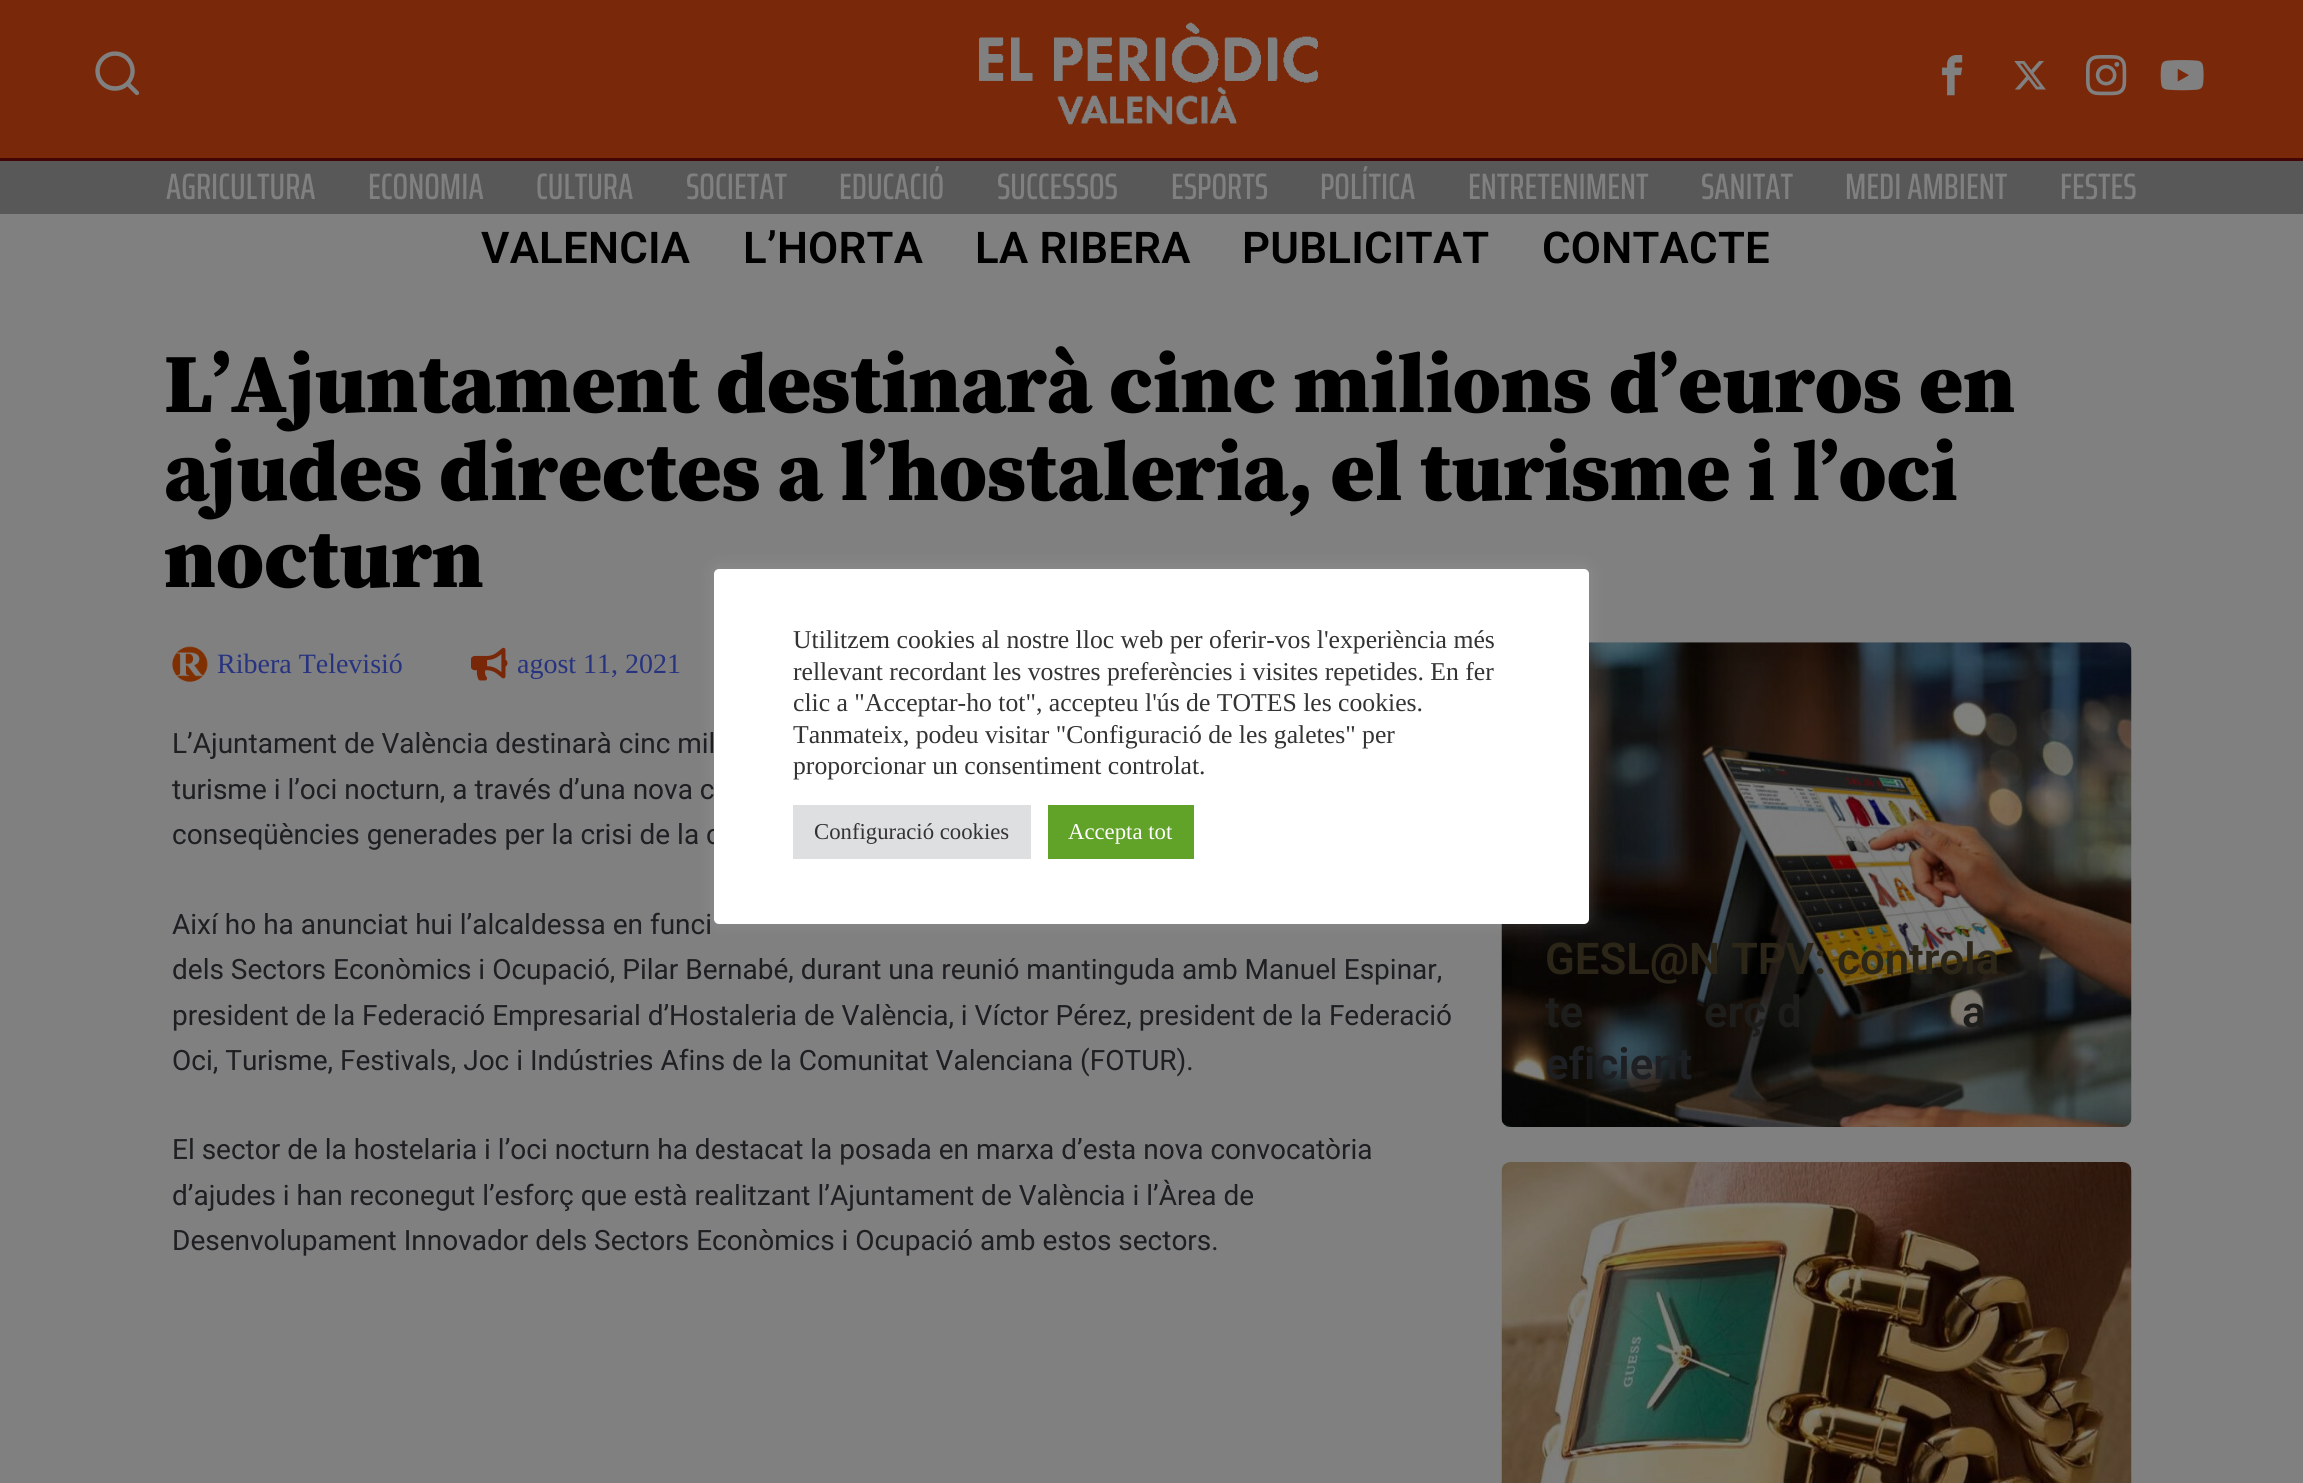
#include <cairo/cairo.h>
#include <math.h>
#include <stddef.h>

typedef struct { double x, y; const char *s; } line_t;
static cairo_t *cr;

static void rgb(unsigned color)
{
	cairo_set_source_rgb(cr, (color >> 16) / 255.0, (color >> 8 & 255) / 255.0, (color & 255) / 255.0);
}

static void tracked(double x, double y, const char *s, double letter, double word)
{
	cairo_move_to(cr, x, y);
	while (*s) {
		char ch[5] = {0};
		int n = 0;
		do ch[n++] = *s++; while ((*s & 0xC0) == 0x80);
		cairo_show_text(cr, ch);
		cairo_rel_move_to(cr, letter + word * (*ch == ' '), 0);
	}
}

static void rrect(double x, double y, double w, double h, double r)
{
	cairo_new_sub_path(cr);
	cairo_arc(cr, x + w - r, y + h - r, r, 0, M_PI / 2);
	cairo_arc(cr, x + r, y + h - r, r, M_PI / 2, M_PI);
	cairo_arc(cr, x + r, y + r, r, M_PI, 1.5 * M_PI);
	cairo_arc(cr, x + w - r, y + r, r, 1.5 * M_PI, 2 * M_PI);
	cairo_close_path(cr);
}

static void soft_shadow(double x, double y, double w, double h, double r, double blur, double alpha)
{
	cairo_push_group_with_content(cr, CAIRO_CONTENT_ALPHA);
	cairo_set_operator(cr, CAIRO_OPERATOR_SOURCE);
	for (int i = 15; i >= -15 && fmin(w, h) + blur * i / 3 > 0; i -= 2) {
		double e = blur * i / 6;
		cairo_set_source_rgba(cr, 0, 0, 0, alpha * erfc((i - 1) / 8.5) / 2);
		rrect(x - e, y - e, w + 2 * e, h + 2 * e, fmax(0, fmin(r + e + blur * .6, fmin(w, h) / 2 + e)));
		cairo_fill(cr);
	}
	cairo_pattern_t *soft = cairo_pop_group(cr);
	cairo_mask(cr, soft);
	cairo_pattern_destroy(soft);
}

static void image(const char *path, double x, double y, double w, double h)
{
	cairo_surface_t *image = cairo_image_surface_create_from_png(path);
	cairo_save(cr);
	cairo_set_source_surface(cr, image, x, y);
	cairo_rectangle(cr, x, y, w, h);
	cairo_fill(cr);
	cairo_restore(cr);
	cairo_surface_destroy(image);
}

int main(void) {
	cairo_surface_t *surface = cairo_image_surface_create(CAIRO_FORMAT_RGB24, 2303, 1483);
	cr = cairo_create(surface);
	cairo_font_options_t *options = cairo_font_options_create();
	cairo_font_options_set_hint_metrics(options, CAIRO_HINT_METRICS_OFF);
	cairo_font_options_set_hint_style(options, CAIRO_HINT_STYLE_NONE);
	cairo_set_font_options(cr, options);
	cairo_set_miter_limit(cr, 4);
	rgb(0x808080);
	cairo_paint(cr);
	rgb(0x792809);
	cairo_rectangle(cr, 0, 0, 2303, 158);
	cairo_fill(cr);
	rgb(0x430505);
	cairo_rectangle(cr, 0, 158, 2303, 3);
	cairo_fill(cr);
	image("img/1.png", 95, 51, 45, 45);
	image("img/2.png", 979, 22, 339, 103);
	image("img/3.png", 1942, 55, 21, 41);
	image("img/4.png", 2014, 61, 32, 29);
	image("img/5.png", 2086, 55, 41, 41);
	image("img/6.png", 2160, 60, 44, 31);
	rgb(0x585858);
	cairo_rectangle(cr, 0, 161, 2303, 53);
	cairo_fill(cr);
	image("img/7.png", 172, 646, 36, 36);
	image("img/8.png", 471, 647, 37, 34);
	image("img/9.png", 1501, 642, 631, 485);
	image("img/10.png", 1501, 1162, 631, 321);
	rgb(0xacabab);
	soft_shadow(714, 567, 875, 355, 5, 9, 0.3);
	cairo_select_font_face(cr, "Saira ExtraCondensed Medium", CAIRO_FONT_SLANT_NORMAL, CAIRO_FONT_WEIGHT_NORMAL);
	cairo_set_font_size(cr, 36.75);
	rgb(0x808080);
	{
		static const line_t items[] = {
			{166, 199, "AGRICULTURA"},
			{368, 199, "ECONOMIA"},
			{536, 199, "CULTURA"},
			{686, 199, "SOCIETAT"},
			{839, 199, "EDUCACIÓ"},
			{997, 199, "SUCCESSOS"},
			{1171, 199, "ESPORTS"},
			{1320, 199, "POLÍTICA"},
			{1468, 199, "ENTRETENIMENT"},
			{1701, 199, "SANITAT"},
			{1845, 199, "MEDI AMBIENT"},
			{2060, 199, "FESTES"},
		};
		for (size_t i = 0; i < sizeof items / sizeof *items; i++) {
			cairo_move_to(cr, items[i].x, items[i].y);
			cairo_show_text(cr, items[i].s);
		}
	}
	cairo_select_font_face(cr, "Roboto SemiBold", CAIRO_FONT_SLANT_NORMAL, CAIRO_FONT_WEIGHT_NORMAL);
	cairo_set_font_size(cr, 43.75);
	rgb(0x000000);
	{
		static const line_t items[] = {
			{481, 263, "VALENCIA"},
			{743, 263, "L’HORTA"},
			{975, 263, "LA RIBERA"},
			{1242, 263, "PUBLICITAT"},
			{1542, 263, "CONTACTE"},
		};
		for (size_t i = 0; i < sizeof items / sizeof *items; i++) {
			tracked(items[i].x, items[i].y, items[i].s, 0.25, 0);
		}
	}
	cairo_select_font_face(cr, "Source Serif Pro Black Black", CAIRO_FONT_SLANT_NORMAL, CAIRO_FONT_WEIGHT_NORMAL);
	cairo_set_font_size(cr, 84);
	{
		static const line_t items[] = {
			{164, 412, "L’Ajuntament destinarà cinc milions d’euros en"},
			{164, 500, "ajudes directes a l’hostaleria, el turisme i l’oci"},
			{164, 587, "nocturn"},
		};
		for (size_t i = 0; i < sizeof items / sizeof *items; i++) {
			cairo_move_to(cr, items[i].x, items[i].y);
			cairo_show_text(cr, items[i].s);
		}
	}
	cairo_select_font_face(cr, "Liberation Serif", CAIRO_FONT_SLANT_NORMAL, CAIRO_FONT_WEIGHT_NORMAL);
	cairo_set_font_size(cr, 28);
	rgb(0x273380);
	cairo_move_to(cr, 217, 673);
	cairo_show_text(cr, "Ribera Televisió");
	cairo_move_to(cr, 517, 673);
	cairo_show_text(cr, "agost 11, 2021");
	cairo_select_font_face(cr, "Roboto", CAIRO_FONT_SLANT_NORMAL, CAIRO_FONT_WEIGHT_NORMAL);
	rgb(0x1d1f22);
	{
		static const line_t items[] = {
			{172, 753, "L’Ajuntament de València destinarà cinc mil"},
			{172, 799, "turisme i l’oci nocturn, a través d’una nova c"},
			{172, 844, "conseqüències generades per la crisi de la c"},
			{172, 934, "Així ho ha anunciat hui l’alcaldessa en funci"},
			{172, 979, "dels Sectors Econòmics i Ocupació, Pilar Bernabé, durant una reunió mantinguda amb Manuel Espinar,"},
			{172, 1025, "president de la Federació Empresarial d’Hostaleria de València, i Víctor Pérez, president de la Federació"},
			{172, 1070, "Oci, Turisme, Festivals, Joc i Indústries Afins de la Comunitat Valenciana (FOTUR)."},
			{172, 1159, "El sector de la hostelaria i l’oci nocturn ha destacat la posada en marxa d’esta nova convocatòria"},
			{172, 1205, "d’ajudes i han reconegut l’esforç que està realitzant l’Ajuntament de València i l’Àrea de"},
			{172, 1250, "Desenvolupament Innovador dels Sectors Econòmics i Ocupació amb estos sectors."},
		};
		for (size_t i = 0; i < sizeof items / sizeof *items; i++) {
			cairo_move_to(cr, items[i].x, items[i].y);
			cairo_show_text(cr, items[i].s);
		}
	}
	cairo_select_font_face(cr, "Roboto SemiBold", CAIRO_FONT_SLANT_NORMAL, CAIRO_FONT_WEIGHT_NORMAL);
	cairo_set_font_size(cr, 43.75);
	rgb(0x2c2618);
	cairo_move_to(cr, 1545, 974);
	cairo_show_text(cr, "GESL@N TPV: controla");
	rgb(0x1d1d1c);
	{
		static const line_t items[] = {
			{1545, 1027, "te"},
			{1704, 1027, "erç d"},
			{1962, 1027, "a"},
		};
		for (size_t i = 0; i < sizeof items / sizeof *items; i++) {
			cairo_move_to(cr, items[i].x, items[i].y);
			cairo_show_text(cr, items[i].s);
		}
	}
	rgb(0x1d1f22);
	cairo_move_to(cr, 1545, 1079);
	cairo_show_text(cr, "eficient");
	rgb(0xffffff);
	rrect(714, 569, 875, 355, 5);
	cairo_fill(cr);
	cairo_select_font_face(cr, "Liberation Serif", CAIRO_FONT_SLANT_NORMAL, CAIRO_FONT_WEIGHT_NORMAL);
	cairo_set_font_size(cr, 25.7);
	rgb(0x333333);
	{
		static const line_t items[] = {
			{793, 648, "Utilitzem cookies al nostre lloc web per oferir-vos l'experiència més"},
			{793, 680, "rellevant recordant les vostres preferències i visites repetides. En fer"},
			{793, 711, "clic a \"Acceptar-ho tot\", accepteu l'ús de TOTES les cookies."},
			{793, 743, "Tanmateix, podeu visitar \"Configuració de les galetes\" per"},
			{793, 774, "proporcionar un consentiment controlat."},
		};
		for (size_t i = 0; i < sizeof items / sizeof *items; i++) {
			cairo_move_to(cr, items[i].x, items[i].y);
			cairo_show_text(cr, items[i].s);
		}
	}
	rgb(0xdedfe0);
	cairo_rectangle(cr, 793, 805, 238, 54);
	cairo_fill(cr);
	cairo_set_font_size(cr, 22.75);
	rgb(0x333333);
	cairo_move_to(cr, 814, 839);
	cairo_show_text(cr, "Configuració cookies");
	rgb(0x61a229);
	cairo_rectangle(cr, 1048, 805, 146, 54);
	cairo_fill(cr);
	rgb(0xffffff);
	cairo_move_to(cr, 1068, 839);
	cairo_show_text(cr, "Accepta tot");
	cairo_surface_write_to_png(surface, "page.png");
	cairo_font_options_destroy(options);
	cairo_destroy(cr);
	cairo_surface_destroy(surface);
	return 0;
}
